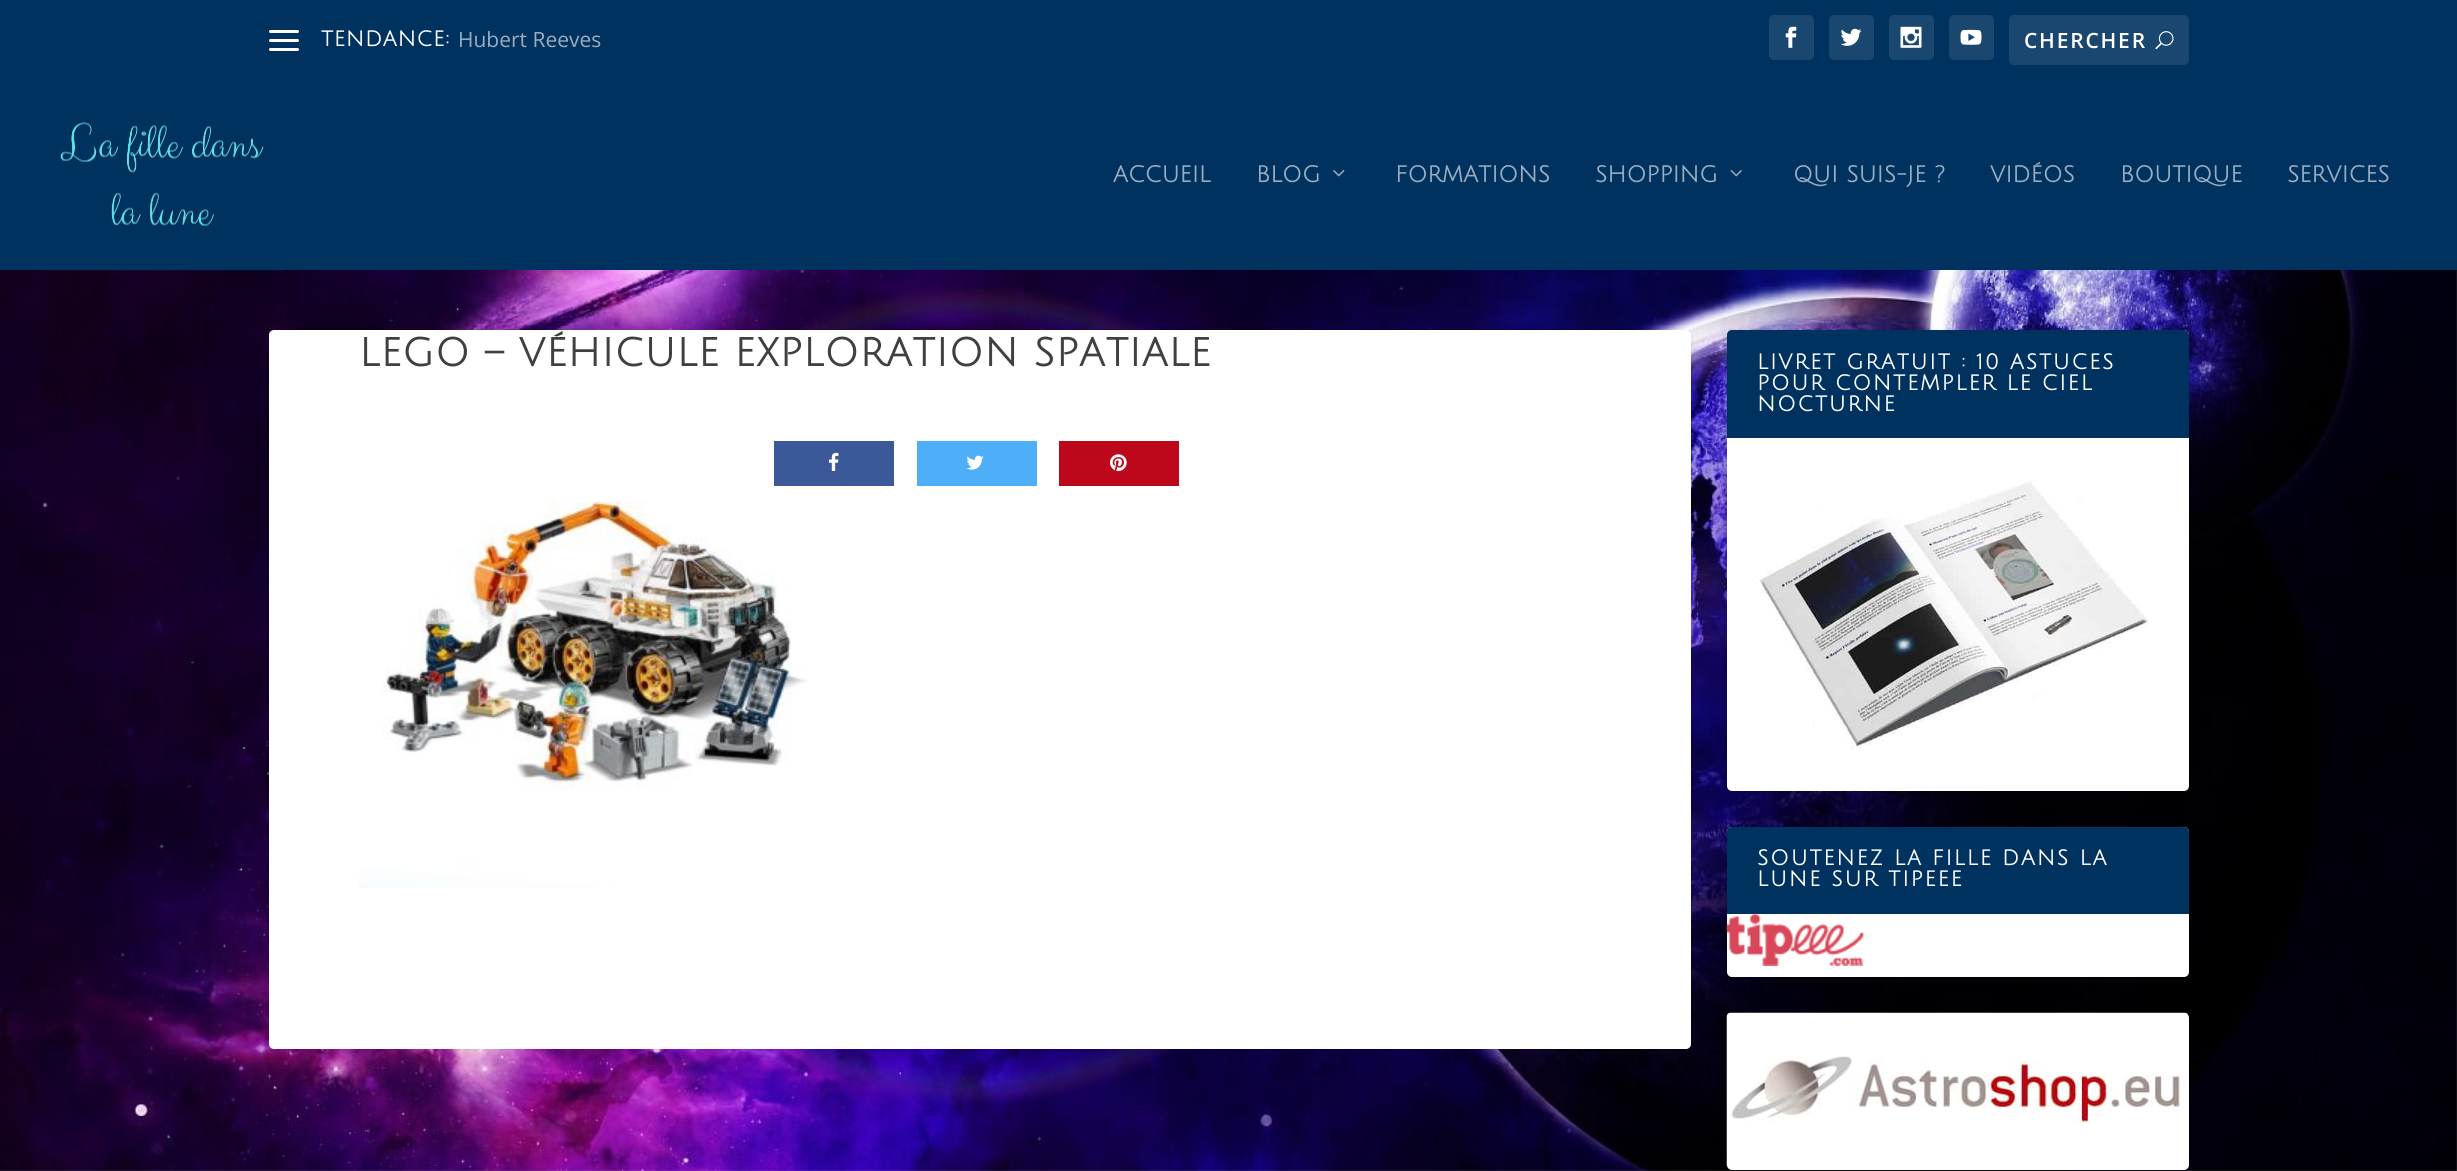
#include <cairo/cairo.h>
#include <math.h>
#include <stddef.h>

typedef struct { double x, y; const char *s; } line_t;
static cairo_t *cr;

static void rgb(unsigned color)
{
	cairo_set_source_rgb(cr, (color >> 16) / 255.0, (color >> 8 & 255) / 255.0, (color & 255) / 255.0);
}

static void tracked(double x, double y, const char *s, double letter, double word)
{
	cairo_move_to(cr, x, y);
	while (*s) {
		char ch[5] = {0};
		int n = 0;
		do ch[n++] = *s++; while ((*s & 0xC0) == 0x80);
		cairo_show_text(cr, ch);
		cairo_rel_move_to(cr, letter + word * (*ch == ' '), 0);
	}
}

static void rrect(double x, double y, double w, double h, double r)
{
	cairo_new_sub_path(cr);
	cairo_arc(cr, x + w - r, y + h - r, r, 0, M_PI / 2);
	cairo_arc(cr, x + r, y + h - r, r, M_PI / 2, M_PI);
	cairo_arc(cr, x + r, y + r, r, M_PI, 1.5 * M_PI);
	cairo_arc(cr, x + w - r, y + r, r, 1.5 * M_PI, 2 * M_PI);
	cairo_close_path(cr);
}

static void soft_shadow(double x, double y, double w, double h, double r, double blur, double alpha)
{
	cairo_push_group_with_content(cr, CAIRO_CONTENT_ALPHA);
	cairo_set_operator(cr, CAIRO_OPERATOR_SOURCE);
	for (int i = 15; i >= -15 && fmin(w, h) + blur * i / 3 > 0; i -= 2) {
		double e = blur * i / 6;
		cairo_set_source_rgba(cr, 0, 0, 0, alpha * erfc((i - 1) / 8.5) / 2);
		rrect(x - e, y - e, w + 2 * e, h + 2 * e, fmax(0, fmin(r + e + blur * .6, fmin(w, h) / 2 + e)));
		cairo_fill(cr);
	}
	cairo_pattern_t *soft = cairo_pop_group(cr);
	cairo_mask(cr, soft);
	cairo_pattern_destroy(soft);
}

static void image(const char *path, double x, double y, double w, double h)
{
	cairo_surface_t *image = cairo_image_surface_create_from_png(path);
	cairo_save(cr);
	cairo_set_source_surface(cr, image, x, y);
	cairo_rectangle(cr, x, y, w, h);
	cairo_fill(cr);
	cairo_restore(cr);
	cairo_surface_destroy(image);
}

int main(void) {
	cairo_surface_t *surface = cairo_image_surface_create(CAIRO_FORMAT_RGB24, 2457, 1171);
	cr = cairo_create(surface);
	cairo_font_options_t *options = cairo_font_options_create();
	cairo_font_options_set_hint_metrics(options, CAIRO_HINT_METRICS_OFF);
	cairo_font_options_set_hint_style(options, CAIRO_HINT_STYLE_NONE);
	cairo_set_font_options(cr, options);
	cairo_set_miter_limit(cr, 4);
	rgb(0xffffff);
	cairo_paint(cr);
	image("img/1.png", 0, 270, 2457, 901);
	rgb(0x003260);
	cairo_rectangle(cr, 0, 0, 2457, 270);
	cairo_fill(cr);
	rgb(0xffffff);
	rrect(269, 30, 30, 3, 1.5);
	cairo_fill(cr);
	rrect(269, 39, 30, 3, 1.5);
	cairo_fill(cr);
	rrect(269, 48, 30, 3, 1.5);
	cairo_fill(cr);
	rgb(0x1a4770);
	rrect(1769, 15, 45, 45, 5);
	cairo_fill(cr);
	image("img/2.png", 1785, 26, 12, 22);
	rrect(1829, 15, 45, 45, 5);
	cairo_fill(cr);
	image("img/3.png", 1840, 28, 22, 18);
	rrect(1889, 15, 45, 45, 5);
	cairo_fill(cr);
	image("img/4.png", 1900, 26, 22, 22);
	rrect(1949, 15, 45, 45, 5);
	cairo_fill(cr);
	image("img/5.png", 1960, 29, 22, 16);
	rrect(2009, 15, 180, 50, 5);
	cairo_fill(cr);
	image("img/6.png", 2155, 31, 19, 19);
	image("img/7.png", 45, 80, 239, 191);
	image("img/8.png", 1333, 170, 12, 7);
	image("img/9.png", 1730, 170, 12, 7);
	rgb(0x000000);
	soft_shadow(269, 332, 1422, 718, 5, 2, 0.1);
	rgb(0xffffff);
	rrect(269, 330, 1422, 719, 5);
	cairo_fill(cr);
	rgb(0x3b5998);
	cairo_rectangle(cr, 774, 441, 120, 45);
	cairo_fill(cr);
	image("img/10.png", 829, 452, 10, 19);
	rgb(0x4eaef8);
	cairo_rectangle(cr, 917, 441, 120, 45);
	cairo_fill(cr);
	image("img/11.png", 966, 455, 18, 15);
	rgb(0xbd081c);
	cairo_rectangle(cr, 1059, 441, 120, 45);
	cairo_fill(cr);
	image("img/12.png", 1110, 454, 17, 17);
	image("img/13.png", 359, 501, 449, 387);
	rgb(0x000000);
	soft_shadow(1727, 332, 462, 460, 5, 2, 0.1);
	rgb(0xffffff);
	rrect(1727, 330, 462, 461, 5);
	cairo_fill(cr);
	rgb(0x003260);
	cairo_new_path(cr);
	cairo_move_to(cr, 1732, 330);
	cairo_line_to(cr, 2184, 330);
	cairo_curve_to(cr, 2187, 330, 2189, 332, 2189, 335);
	cairo_line_to(cr, 2189, 438);
	cairo_line_to(cr, 1727, 438);
	cairo_line_to(cr, 1727, 335);
	cairo_curve_to(cr, 1727, 332, 1729, 330, 1732, 330);
	cairo_close_path(cr);
	cairo_fill(cr);
	image("img/14.png", 1755, 480, 394, 270);
	rgb(0x000000);
	soft_shadow(1727, 828, 462, 150, 5, 2, 0.1);
	rgb(0xffffff);
	rrect(1727, 827, 462, 150, 5);
	cairo_fill(cr);
	rgb(0x003260);
	cairo_new_path(cr);
	cairo_move_to(cr, 1732, 827);
	cairo_line_to(cr, 2184, 827);
	cairo_curve_to(cr, 2187, 827, 2189, 829, 2189, 832);
	cairo_line_to(cr, 2189, 914);
	cairo_line_to(cr, 1727, 914);
	cairo_line_to(cr, 1727, 832);
	cairo_curve_to(cr, 1727, 829, 1729, 827, 1732, 827);
	cairo_close_path(cr);
	cairo_fill(cr);
	image("img/15.png", 1726, 913, 139, 53);
	rgb(0xffffff);
	rrect(1727, 1013, 462, 157, 5);
	cairo_fill(cr);
	image("img/16.png", 1726, 1012, 463, 154);
	cairo_select_font_face(cr, "Julius Sans One", CAIRO_FONT_SLANT_NORMAL, CAIRO_FONT_WEIGHT_BOLD);
	cairo_set_font_size(cr, 21);
	tracked(321, 46, "TENDANCE:", 0.75, 0);
	cairo_select_font_face(cr, "Open Sans", CAIRO_FONT_SLANT_NORMAL, CAIRO_FONT_WEIGHT_NORMAL);
	rgb(0x99adbf);
	cairo_move_to(cr, 458, 47);
	cairo_show_text(cr, "Hubert Reeves");
	cairo_select_font_face(cr, "Open Sans SemiBold", CAIRO_FONT_SLANT_NORMAL, CAIRO_FONT_WEIGHT_NORMAL);
	rgb(0xffffff);
	tracked(2024, 48, "CHERCHER", 1.8, 0);
	cairo_select_font_face(cr, "Julius Sans One", CAIRO_FONT_SLANT_NORMAL, CAIRO_FONT_WEIGHT_BOLD);
	cairo_set_font_size(cr, 22.5);
	rgb(0x99adbf);
	{
		static const line_t items[] = {
			{1113, 182, "ACCUEIL"},
			{1256, 182, "BLOG"},
			{1395, 182, "FORMATIONS"},
			{1595, 182, "SHOPPING"},
			{1793, 182, "QUI SUIS-JE ?"},
			{1990, 182, "VIDÉOS"},
			{2120, 182, "BOUTIQUE"},
			{2287, 182, "SERVICES"},
		};
		for (size_t i = 0; i < sizeof items / sizeof *items; i++) {
			cairo_move_to(cr, items[i].x, items[i].y);
			cairo_show_text(cr, items[i].s);
		}
	}
	cairo_set_font_size(cr, 39);
	rgb(0x404040);
	tracked(359, 366, "LEGO – VÉHICULE EXPLORATION SPATIALE", 0.75, 0);
	cairo_set_font_size(cr, 21);
	rgb(0xffffff);
	{
		static const line_t items[] = {
			{1757, 369, "LIVRET GRATUIT : 10 ASTUCES"},
			{1757, 390, "POUR CONTEMPLER LE CIEL"},
			{1757, 411, "NOCTURNE"},
			{1757, 865, "SOUTENEZ LA FILLE DANS LA"},
			{1757, 886, "LUNE SUR TIPEEE"},
		};
		for (size_t i = 0; i < sizeof items / sizeof *items; i++) {
			tracked(items[i].x, items[i].y, items[i].s, 1.8, 0);
		}
	}
	cairo_surface_write_to_png(surface, "page.png");
	cairo_font_options_destroy(options);
	cairo_destroy(cr);
	cairo_surface_destroy(surface);
	return 0;
}
